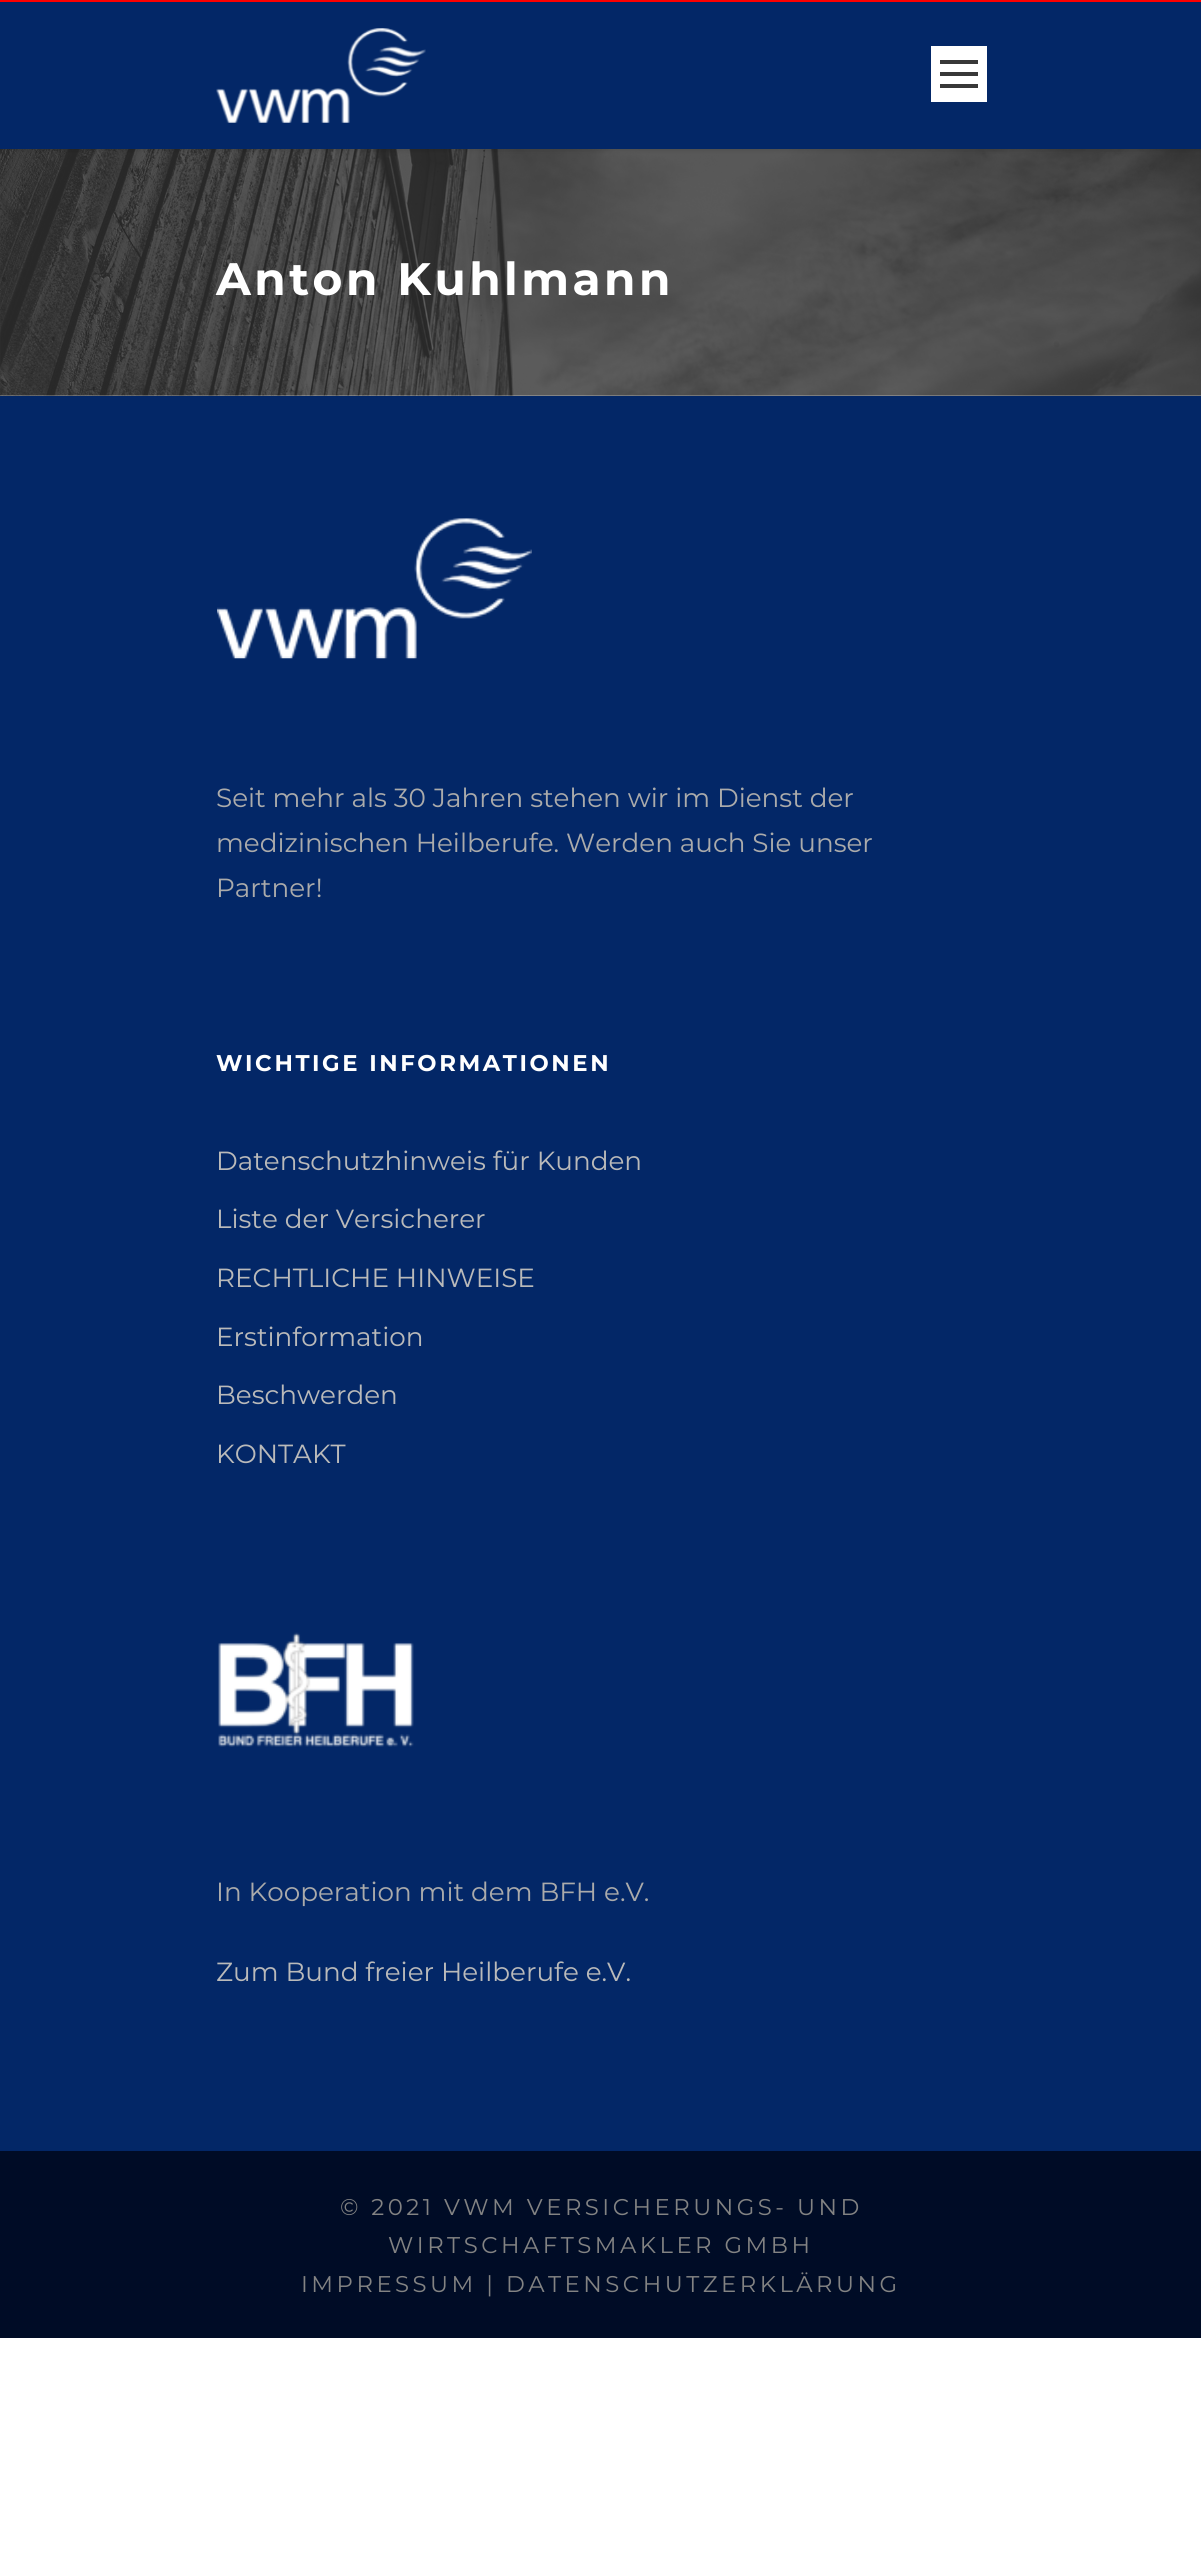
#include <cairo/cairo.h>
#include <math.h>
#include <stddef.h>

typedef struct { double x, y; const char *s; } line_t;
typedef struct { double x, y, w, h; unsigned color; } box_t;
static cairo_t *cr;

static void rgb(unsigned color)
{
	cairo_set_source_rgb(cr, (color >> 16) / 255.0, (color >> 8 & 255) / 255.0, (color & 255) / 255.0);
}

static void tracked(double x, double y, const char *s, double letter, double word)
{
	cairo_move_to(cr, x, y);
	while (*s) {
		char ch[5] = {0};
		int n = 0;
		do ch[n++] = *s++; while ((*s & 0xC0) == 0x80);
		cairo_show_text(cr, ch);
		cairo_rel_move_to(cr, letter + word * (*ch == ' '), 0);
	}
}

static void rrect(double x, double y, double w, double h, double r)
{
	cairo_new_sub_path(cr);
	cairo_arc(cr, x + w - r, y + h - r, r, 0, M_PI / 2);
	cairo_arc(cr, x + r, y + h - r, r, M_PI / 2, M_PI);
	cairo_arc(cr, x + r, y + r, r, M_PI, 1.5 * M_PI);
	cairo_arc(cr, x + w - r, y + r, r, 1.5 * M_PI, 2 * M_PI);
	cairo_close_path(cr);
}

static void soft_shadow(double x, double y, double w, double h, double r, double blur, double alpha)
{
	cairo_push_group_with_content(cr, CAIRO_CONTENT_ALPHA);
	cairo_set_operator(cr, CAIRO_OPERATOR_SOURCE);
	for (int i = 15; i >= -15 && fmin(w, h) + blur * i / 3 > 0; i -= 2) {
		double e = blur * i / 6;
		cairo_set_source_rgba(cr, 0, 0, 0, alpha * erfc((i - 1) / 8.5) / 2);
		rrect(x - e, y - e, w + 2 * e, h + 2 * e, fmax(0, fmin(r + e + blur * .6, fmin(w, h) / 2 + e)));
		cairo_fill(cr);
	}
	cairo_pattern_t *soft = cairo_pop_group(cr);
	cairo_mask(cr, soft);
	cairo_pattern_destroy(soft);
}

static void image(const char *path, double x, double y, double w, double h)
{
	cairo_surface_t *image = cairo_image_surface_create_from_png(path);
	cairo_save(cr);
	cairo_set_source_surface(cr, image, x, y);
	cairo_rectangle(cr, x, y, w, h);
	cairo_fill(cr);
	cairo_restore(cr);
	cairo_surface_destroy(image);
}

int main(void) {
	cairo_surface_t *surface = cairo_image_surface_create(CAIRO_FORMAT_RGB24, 1201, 2557);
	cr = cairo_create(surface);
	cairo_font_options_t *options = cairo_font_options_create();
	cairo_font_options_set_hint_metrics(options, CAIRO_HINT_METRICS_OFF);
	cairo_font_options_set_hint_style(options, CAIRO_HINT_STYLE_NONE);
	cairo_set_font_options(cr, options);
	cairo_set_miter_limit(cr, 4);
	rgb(0xffffff);
	cairo_paint(cr);
	rgb(0xff0000);
	cairo_rectangle(cr, 0, 0, 1201, 2);
	cairo_fill(cr);
	image("img/2.png", 0, 149, 1201, 247);
	rgb(0x000000);
	soft_shadow(0, 4, 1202, 147, 0, 2, 0.1);
	rgb(0x032767);
	cairo_rectangle(cr, 0, 2, 1201, 147);
	cairo_fill(cr);
	image("img/1.png", 216, 28, 210, 95);
	{
		static const box_t items[] = {
			{931, 46, 56, 56, 0xffffff},
			{940, 60, 38, 4, 0x383838},
			{940, 72, 38, 4, 0x383838},
			{940, 84, 38, 4, 0x383838},
			{0, 396, 1201, 1755, 0x032767},
		};
		for (size_t i = 0; i < sizeof items / sizeof *items; i++) {
			rgb(items[i].color);
			cairo_rectangle(cr, items[i].x, items[i].y, items[i].w, items[i].h);
			cairo_fill(cr);
		}
	}
	image("img/3.png", 217, 518, 315, 141);
	image("img/4.png", 218, 1632, 196, 115);
	rgb(0x000c26);
	cairo_rectangle(cr, 0, 2151, 1201, 187);
	cairo_fill(cr);
	cairo_select_font_face(cr, "Montserrat", CAIRO_FONT_SLANT_NORMAL, CAIRO_FONT_WEIGHT_BOLD);
	cairo_set_font_size(cr, 45.5);
	rgb(0xffffff);
	tracked(216, 295, "Anton Kuhlmann", 3.5, 0);
	cairo_select_font_face(cr, "Montserrat", CAIRO_FONT_SLANT_NORMAL, CAIRO_FONT_WEIGHT_NORMAL);
	cairo_set_font_size(cr, 26.25);
	rgb(0xababab);
	{
		static const line_t items[] = {
			{216, 807, "Seit mehr als 30 Jahren stehen wir im Dienst der"},
			{216, 852, "medizinischen Heilberufe. Werden auch Sie unser"},
			{216, 897, "Partner!"},
		};
		for (size_t i = 0; i < sizeof items / sizeof *items; i++) {
			cairo_move_to(cr, items[i].x, items[i].y);
			cairo_show_text(cr, items[i].s);
		}
	}
	cairo_select_font_face(cr, "Montserrat", CAIRO_FONT_SLANT_NORMAL, CAIRO_FONT_WEIGHT_BOLD);
	cairo_set_font_size(cr, 22.75);
	rgb(0xffffff);
	tracked(216, 1071, "WICHTIGE INFORMATIONEN", 2.6, 0);
	cairo_select_font_face(cr, "Montserrat", CAIRO_FONT_SLANT_NORMAL, CAIRO_FONT_WEIGHT_NORMAL);
	cairo_set_font_size(cr, 26.25);
	rgb(0xbababa);
	{
		static const line_t items[] = {
			{216, 1170, "Datenschutzhinweis für Kunden"},
			{216, 1228, "Liste der Versicherer"},
			{216, 1287, "RECHTLICHE HINWEISE"},
			{216, 1346, "Erstinformation"},
			{216, 1404, "Beschwerden"},
			{216, 1463, "KONTAKT"},
		};
		for (size_t i = 0; i < sizeof items / sizeof *items; i++) {
			cairo_move_to(cr, items[i].x, items[i].y);
			cairo_show_text(cr, items[i].s);
		}
	}
	rgb(0xababab);
	cairo_move_to(cr, 216, 1901);
	cairo_show_text(cr, "In Kooperation mit dem BFH e.V.");
	rgb(0xbababa);
	cairo_move_to(cr, 216, 1981);
	cairo_show_text(cr, "Zum Bund freier Heilberufe e.V.");
	cairo_set_font_size(cr, 22.75);
	rgb(0x838383);
	{
		static const line_t items[] = {
			{340, 2215, "© 2021 VWM VERSICHERUNGS- UND"},
			{388, 2253, "WIRTSCHAFTSMAKLER GMBH"},
			{301, 2292, "IMPRESSUM | DATENSCHUTZERKLÄRUNG"},
		};
		for (size_t i = 0; i < sizeof items / sizeof *items; i++) {
			tracked(items[i].x, items[i].y, items[i].s, 3.5, 0);
		}
	}
	cairo_surface_write_to_png(surface, "page.png");
	cairo_font_options_destroy(options);
	cairo_destroy(cr);
	cairo_surface_destroy(surface);
	return 0;
}
